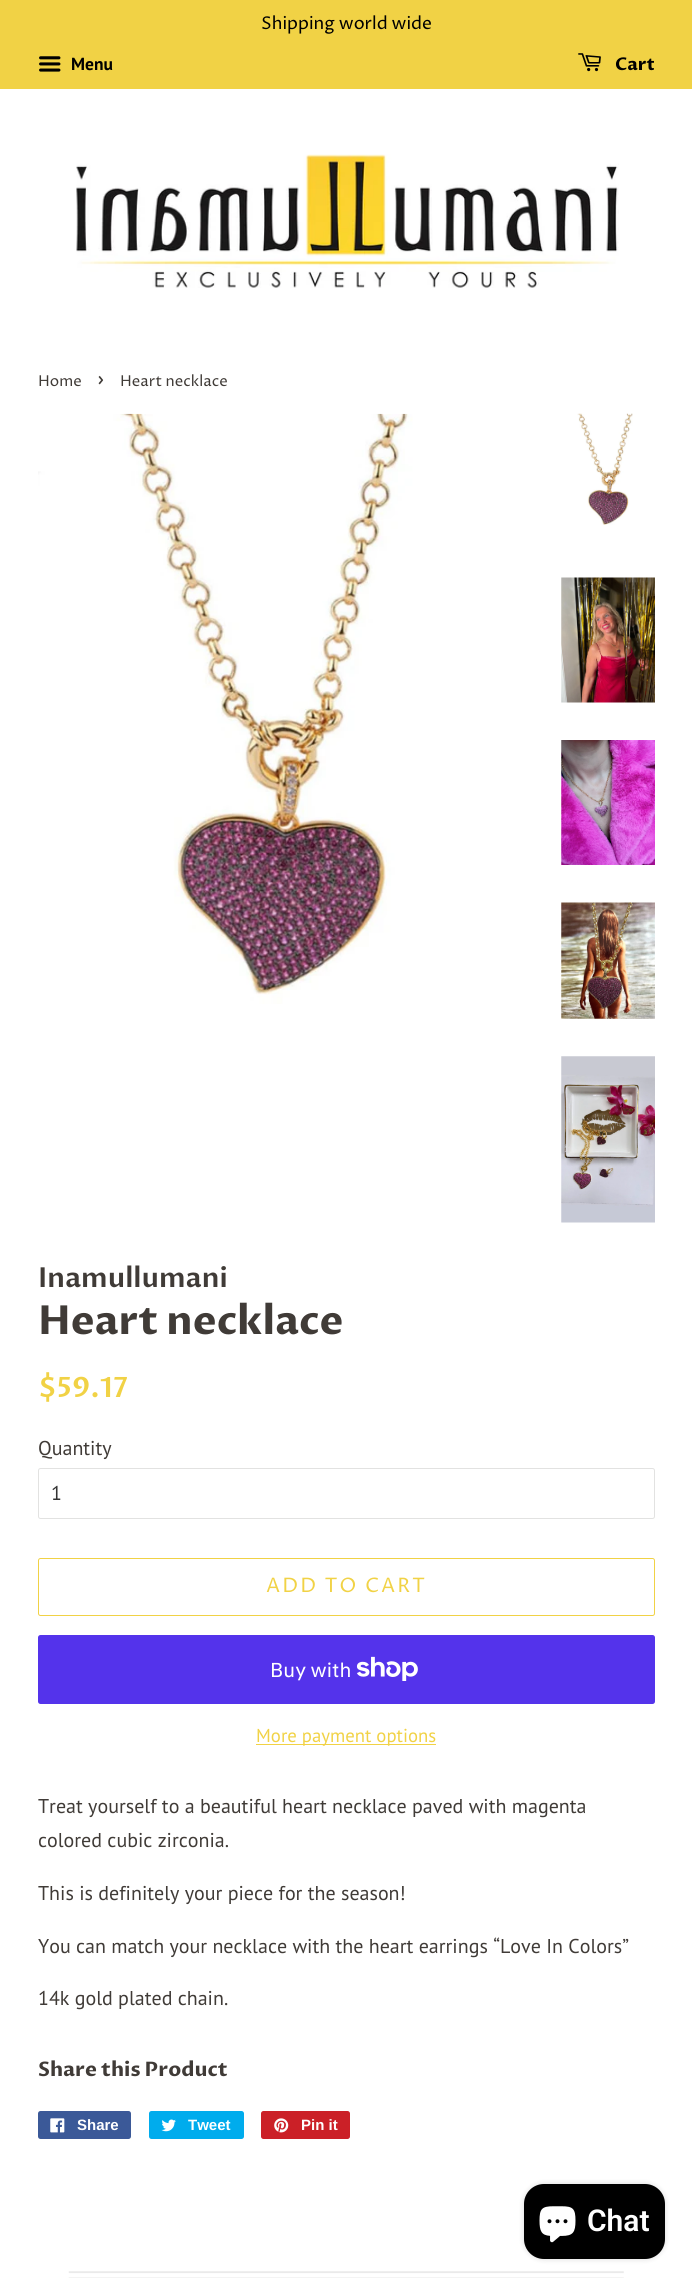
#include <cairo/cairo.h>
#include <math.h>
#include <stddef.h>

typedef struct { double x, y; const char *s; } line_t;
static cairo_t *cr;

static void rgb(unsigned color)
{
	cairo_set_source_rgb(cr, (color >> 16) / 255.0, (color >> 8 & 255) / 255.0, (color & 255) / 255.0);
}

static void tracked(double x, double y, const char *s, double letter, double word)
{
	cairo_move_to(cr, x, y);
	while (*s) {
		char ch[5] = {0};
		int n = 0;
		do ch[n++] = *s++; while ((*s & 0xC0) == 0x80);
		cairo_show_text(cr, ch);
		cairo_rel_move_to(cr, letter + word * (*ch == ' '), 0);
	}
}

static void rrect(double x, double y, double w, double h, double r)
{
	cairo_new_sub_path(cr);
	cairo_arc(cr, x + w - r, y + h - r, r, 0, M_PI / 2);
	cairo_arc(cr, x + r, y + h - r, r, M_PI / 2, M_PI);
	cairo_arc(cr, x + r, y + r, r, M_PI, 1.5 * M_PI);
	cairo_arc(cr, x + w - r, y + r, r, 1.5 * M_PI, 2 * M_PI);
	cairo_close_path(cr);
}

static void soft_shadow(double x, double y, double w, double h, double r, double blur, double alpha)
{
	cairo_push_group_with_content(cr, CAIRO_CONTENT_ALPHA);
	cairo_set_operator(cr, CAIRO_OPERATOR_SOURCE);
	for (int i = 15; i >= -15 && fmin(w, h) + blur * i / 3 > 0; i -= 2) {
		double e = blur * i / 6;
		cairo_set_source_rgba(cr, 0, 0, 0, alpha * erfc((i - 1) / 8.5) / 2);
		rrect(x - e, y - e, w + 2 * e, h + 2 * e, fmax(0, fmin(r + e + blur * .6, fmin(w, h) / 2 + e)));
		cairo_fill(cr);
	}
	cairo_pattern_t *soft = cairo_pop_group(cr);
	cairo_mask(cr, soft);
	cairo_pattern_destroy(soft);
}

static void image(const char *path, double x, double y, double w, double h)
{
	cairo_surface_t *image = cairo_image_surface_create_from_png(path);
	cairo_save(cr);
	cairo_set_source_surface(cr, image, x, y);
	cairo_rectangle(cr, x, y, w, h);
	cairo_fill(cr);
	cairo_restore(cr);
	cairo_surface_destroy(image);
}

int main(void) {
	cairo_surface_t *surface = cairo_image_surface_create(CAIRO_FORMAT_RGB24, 692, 2284);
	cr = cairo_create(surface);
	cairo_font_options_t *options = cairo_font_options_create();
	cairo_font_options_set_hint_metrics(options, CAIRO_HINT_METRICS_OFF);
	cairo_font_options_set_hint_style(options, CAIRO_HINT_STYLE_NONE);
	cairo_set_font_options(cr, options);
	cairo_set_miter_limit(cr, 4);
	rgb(0xffffff);
	cairo_paint(cr);
	rgb(0xf1d245);
	cairo_rectangle(cr, 0, 0, 692, 89);
	cairo_fill(cr);
	image("img/1.png", 39, 56, 22, 16);
	image("img/2.png", 578, 53, 23, 19);
	image("img/3.png", 76, 154, 543, 134);
	image("img/4.png", 38, 413, 375, 591);
	image("img/5.png", 577, 413, 56, 112);
	image("img/6.png", 561, 577, 94, 126);
	image("img/7.png", 561, 740, 94, 125);
	image("img/8.png", 561, 902, 94, 117);
	image("img/9.png", 561, 1056, 94, 167);
	rrect(38.5, 1468.5, 616, 50, 2);
	rgb(0xe2e2e1);
	cairo_set_line_width(cr, 1);
	cairo_stroke(cr);
	rrect(38.5, 1558.5, 616, 57, 2);
	rgb(0xf1d245);
	cairo_stroke(cr);
	rgb(0x5433eb);
	rrect(38, 1635, 617, 69, 2.5);
	cairo_fill(cr);
	image("img/10.png", 356, 1656, 62, 25);
	rgb(0xf1d245);
	cairo_rectangle(cr, 256, 1744, 180, 1);
	cairo_fill(cr);
	rgb(0x3b5998);
	rrect(38, 2111, 93, 28, 2.5);
	cairo_fill(cr);
	image("img/11.png", 50, 2118, 15, 15);
	rgb(0x00aced);
	rrect(149, 2111, 95, 28, 2.5);
	cairo_fill(cr);
	image("img/12.png", 161, 2119, 15, 13);
	rgb(0xcb2027);
	rrect(261, 2111, 89, 28, 2.5);
	cairo_fill(cr);
	image("img/13.png", 274, 2118, 15, 15);
	image("img/14.png", 68, 2271, 556, 7);
	rgb(0x000000);
	soft_shadow(524, 2184, 141, 75, 20, 3, 0.15);
	rgb(0x000000);
	rrect(524, 2184, 141, 75, 20);
	cairo_fill(cr);
	image("img/15.png", 539, 2206, 37, 37);
	cairo_select_font_face(cr, "Proza Libre", CAIRO_FONT_SLANT_NORMAL, CAIRO_FONT_WEIGHT_NORMAL);
	cairo_set_font_size(cr, 17.5);
	cairo_move_to(cr, 261, 29);
	cairo_show_text(cr, "Shipping world wide");
	cairo_select_font_face(cr, "PT Sans", CAIRO_FONT_SLANT_NORMAL, CAIRO_FONT_WEIGHT_BOLD);
	cairo_move_to(cr, 71, 70);
	cairo_show_text(cr, "Menu");
	cairo_select_font_face(cr, "Proza Libre", CAIRO_FONT_SLANT_NORMAL, CAIRO_FONT_WEIGHT_BOLD);
	cairo_move_to(cr, 615, 70);
	cairo_show_text(cr, "Cart");
	cairo_select_font_face(cr, "Proza Libre", CAIRO_FONT_SLANT_NORMAL, CAIRO_FONT_WEIGHT_NORMAL);
	cairo_set_font_size(cr, 15);
	rgb(0x403b37);
	cairo_move_to(cr, 38, 386);
	cairo_show_text(cr, "Home");
	cairo_set_font_size(cr, 21);
	cairo_move_to(cr, 97, 386);
	cairo_show_text(cr, "›");
	cairo_set_font_size(cr, 15);
	cairo_move_to(cr, 120, 386);
	cairo_show_text(cr, "Heart necklace");
	cairo_select_font_face(cr, "Proza Libre SemiBold", CAIRO_FONT_SLANT_NORMAL, CAIRO_FONT_WEIGHT_NORMAL);
	cairo_set_font_size(cr, 27.5);
	cairo_move_to(cr, 38, 1287);
	cairo_show_text(cr, "Inamullumani");
	cairo_select_font_face(cr, "Proza Libre", CAIRO_FONT_SLANT_NORMAL, CAIRO_FONT_WEIGHT_BOLD);
	cairo_set_font_size(cr, 40);
	cairo_move_to(cr, 38, 1334);
	cairo_show_text(cr, "Heart necklace");
	cairo_select_font_face(cr, "Proza Libre SemiBold", CAIRO_FONT_SLANT_NORMAL, CAIRO_FONT_WEIGHT_NORMAL);
	cairo_set_font_size(cr, 28);
	rgb(0xf1d245);
	cairo_move_to(cr, 38, 1397);
	cairo_show_text(cr, "$59.17");
	cairo_select_font_face(cr, "PT Sans", CAIRO_FONT_SLANT_NORMAL, CAIRO_FONT_WEIGHT_NORMAL);
	cairo_set_font_size(cr, 20);
	rgb(0x403b37);
	cairo_move_to(cr, 38, 1455);
	cairo_show_text(cr, "Quantity");
	rgb(0x333333);
	cairo_move_to(cr, 51, 1500);
	cairo_show_text(cr, "1");
	cairo_select_font_face(cr, "Proza Libre", CAIRO_FONT_SLANT_NORMAL, CAIRO_FONT_WEIGHT_NORMAL);
	rgb(0xf1d245);
	tracked(266, 1592, "ADD TO CART", 2, 0);
	cairo_select_font_face(cr, "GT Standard", CAIRO_FONT_SLANT_NORMAL, CAIRO_FONT_WEIGHT_NORMAL);
	rgb(0xffffff);
	cairo_move_to(cr, 270, 1677);
	cairo_show_text(cr, "Buy with");
	cairo_select_font_face(cr, "PT Sans", CAIRO_FONT_SLANT_NORMAL, CAIRO_FONT_WEIGHT_NORMAL);
	cairo_set_font_size(cr, 18.75);
	rgb(0xf1d245);
	cairo_move_to(cr, 256, 1742);
	cairo_show_text(cr, "More payment options");
	cairo_set_font_size(cr, 20);
	rgb(0x403b37);
	{
		static const line_t items[] = {
			{38, 1813, "Treat yourself to a beautiful heart necklace paved with magenta"},
			{38, 1847, "colored cubic zirconia."},
			{38, 1900, "This is definitely your piece for the season!"},
			{38, 1953, "You can match your necklace with the heart earrings “Love In Colors”"},
			{38, 2005, "14k gold plated chain."},
		};
		for (size_t i = 0; i < sizeof items / sizeof *items; i++) {
			cairo_move_to(cr, items[i].x, items[i].y);
			cairo_show_text(cr, items[i].s);
		}
	}
	cairo_select_font_face(cr, "Proza Libre", CAIRO_FONT_SLANT_NORMAL, CAIRO_FONT_WEIGHT_BOLD);
	cairo_move_to(cr, 38, 2076);
	cairo_show_text(cr, "Share this Product");
	cairo_select_font_face(cr, "Liberation Sans", CAIRO_FONT_SLANT_NORMAL, CAIRO_FONT_WEIGHT_BOLD);
	cairo_set_font_size(cr, 15);
	rgb(0xffffff);
	{
		static const line_t items[] = {
			{77, 2130, "Share"},
			{188, 2130, "Tweet"},
			{301, 2130, "Pin it"},
		};
		for (size_t i = 0; i < sizeof items / sizeof *items; i++) {
			cairo_move_to(cr, items[i].x, items[i].y);
			cairo_show_text(cr, items[i].s);
		}
	}
	cairo_select_font_face(cr, "Roboto SemiBold", CAIRO_FONT_SLANT_NORMAL, CAIRO_FONT_WEIGHT_NORMAL);
	cairo_set_font_size(cr, 30);
	cairo_move_to(cr, 587, 2231);
	cairo_show_text(cr, "Chat");
	cairo_surface_write_to_png(surface, "page.png");
	cairo_font_options_destroy(options);
	cairo_destroy(cr);
	cairo_surface_destroy(surface);
	return 0;
}
